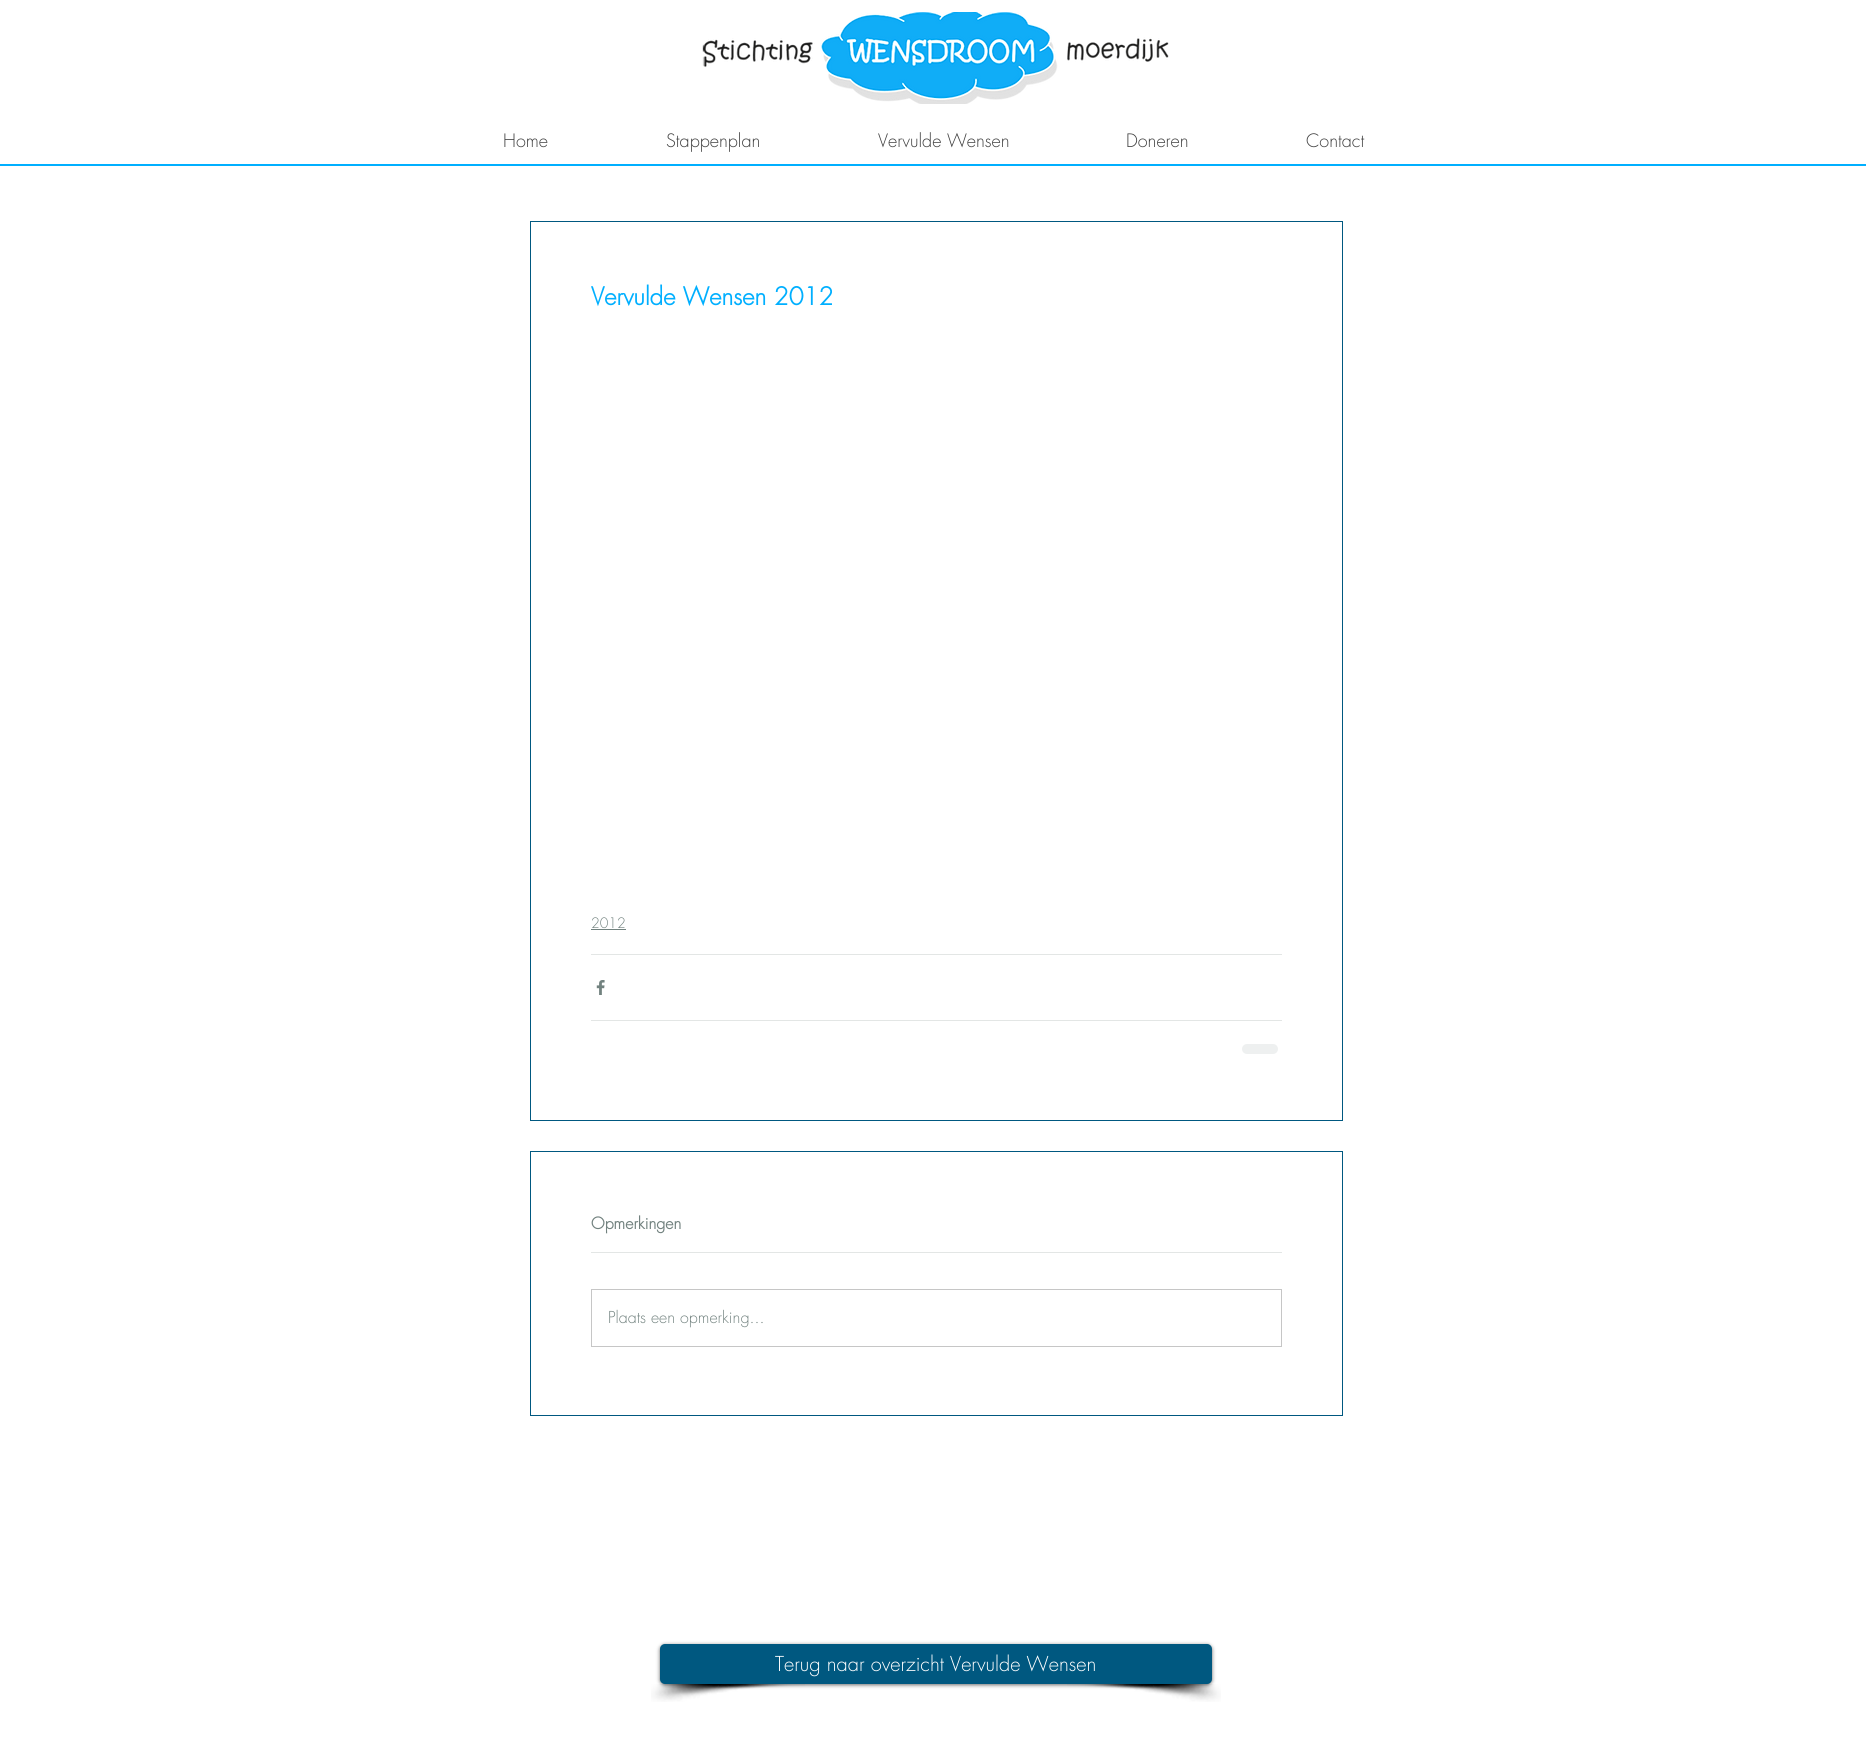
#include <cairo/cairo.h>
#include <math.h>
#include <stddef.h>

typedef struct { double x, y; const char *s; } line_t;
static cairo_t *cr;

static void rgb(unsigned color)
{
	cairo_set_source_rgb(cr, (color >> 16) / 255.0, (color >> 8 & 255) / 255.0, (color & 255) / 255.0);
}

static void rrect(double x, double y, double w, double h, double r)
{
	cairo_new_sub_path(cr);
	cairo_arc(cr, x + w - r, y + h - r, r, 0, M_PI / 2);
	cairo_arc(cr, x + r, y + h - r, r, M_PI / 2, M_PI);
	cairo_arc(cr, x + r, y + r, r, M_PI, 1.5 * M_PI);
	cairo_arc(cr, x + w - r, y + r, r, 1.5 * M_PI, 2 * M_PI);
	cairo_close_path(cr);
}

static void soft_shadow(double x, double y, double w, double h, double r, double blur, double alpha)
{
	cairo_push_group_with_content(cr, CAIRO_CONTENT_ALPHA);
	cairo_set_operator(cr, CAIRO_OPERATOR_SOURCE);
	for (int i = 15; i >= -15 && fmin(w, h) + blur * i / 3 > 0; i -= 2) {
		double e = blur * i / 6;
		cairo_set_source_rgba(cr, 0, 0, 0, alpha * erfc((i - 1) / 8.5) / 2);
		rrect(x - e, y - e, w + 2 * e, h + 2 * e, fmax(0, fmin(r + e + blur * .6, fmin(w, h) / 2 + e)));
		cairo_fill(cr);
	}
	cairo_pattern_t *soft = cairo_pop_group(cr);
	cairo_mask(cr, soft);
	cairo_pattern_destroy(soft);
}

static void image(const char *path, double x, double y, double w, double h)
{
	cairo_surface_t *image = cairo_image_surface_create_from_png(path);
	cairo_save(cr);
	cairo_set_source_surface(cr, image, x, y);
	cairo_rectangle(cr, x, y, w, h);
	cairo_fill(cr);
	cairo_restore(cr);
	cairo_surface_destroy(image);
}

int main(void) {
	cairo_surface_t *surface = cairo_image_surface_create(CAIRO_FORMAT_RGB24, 1866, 1744);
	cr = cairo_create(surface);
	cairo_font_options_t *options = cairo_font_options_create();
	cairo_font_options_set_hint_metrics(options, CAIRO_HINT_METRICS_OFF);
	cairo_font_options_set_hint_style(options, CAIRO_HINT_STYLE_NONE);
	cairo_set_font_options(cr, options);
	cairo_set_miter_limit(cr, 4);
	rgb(0xffffff);
	cairo_paint(cr);
	image("img/1.png", 702, 12, 467, 92);
	rgb(0x00afff);
	cairo_rectangle(cr, 0, 164, 1866, 2);
	cairo_fill(cr);
	cairo_rectangle(cr, 530.5, 221.5, 812, 899);
	rgb(0x005880);
	cairo_set_line_width(cr, 1);
	cairo_stroke(cr);
	rgb(0x72827f);
	cairo_rectangle(cr, 591, 929, 35, 1);
	cairo_fill(cr);
	rgb(0xe3e6e5);
	cairo_rectangle(cr, 591, 954, 691, 1);
	cairo_fill(cr);
	image("img/2.png", 596, 980, 9, 15);
	cairo_rectangle(cr, 591, 1020, 691, 1);
	cairo_fill(cr);
	rgb(0xeef0f0);
	rrect(1242, 1044, 36, 10, 5);
	cairo_fill(cr);
	cairo_rectangle(cr, 530.5, 1151.5, 812, 264);
	rgb(0x005880);
	cairo_stroke(cr);
	rgb(0xe3e6e5);
	cairo_rectangle(cr, 591, 1252, 691, 1);
	cairo_fill(cr);
	cairo_rectangle(cr, 591.5, 1289.5, 690, 57);
	rgb(0xc6c6c6);
	cairo_stroke(cr);
	image("img/3.png", 651, 1684, 154, 18);
	image("img/4.png", 1067, 1684, 154, 18);
	rgb(0x000000);
	soft_shadow(660, 1645, 552, 40, 5, 2, 0.6);
	rgb(0x005880);
	rrect(660, 1644, 552, 40, 5);
	cairo_fill(cr);
	cairo_select_font_face(cr, "futura Light", CAIRO_FONT_SLANT_NORMAL, CAIRO_FONT_WEIGHT_NORMAL);
	cairo_set_font_size(cr, 18);
	rgb(0x414141);
	{
		static const line_t items[] = {
			{503, 147, "Home"},
			{666, 147, "Stappenplan"},
			{878, 147, "Vervulde Wensen"},
			{1126, 147, "Doneren"},
			{1306, 147, "Contact"},
		};
		for (size_t i = 0; i < sizeof items / sizeof *items; i++) {
			cairo_move_to(cr, items[i].x, items[i].y);
			cairo_show_text(cr, items[i].s);
		}
	}
	cairo_select_font_face(cr, "futura", CAIRO_FONT_SLANT_NORMAL, CAIRO_FONT_WEIGHT_BOLD);
	cairo_set_font_size(cr, 24);
	rgb(0x00afff);
	cairo_move_to(cr, 591, 305);
	cairo_show_text(cr, "Vervulde Wensen 2012");
	cairo_select_font_face(cr, "futura Light", CAIRO_FONT_SLANT_NORMAL, CAIRO_FONT_WEIGHT_NORMAL);
	cairo_set_font_size(cr, 14);
	rgb(0x72827f);
	cairo_move_to(cr, 591, 928);
	cairo_show_text(cr, "2012");
	cairo_select_font_face(cr, "futura", CAIRO_FONT_SLANT_NORMAL, CAIRO_FONT_WEIGHT_BOLD);
	cairo_set_font_size(cr, 16);
	cairo_move_to(cr, 591, 1229);
	cairo_show_text(cr, "Opmerkingen");
	cairo_select_font_face(cr, "futura Light", CAIRO_FONT_SLANT_NORMAL, CAIRO_FONT_WEIGHT_NORMAL);
	cairo_move_to(cr, 608, 1323);
	cairo_show_text(cr, "Plaats een opmerking...");
	cairo_set_font_size(cr, 20);
	rgb(0xffffff);
	cairo_move_to(cr, 775, 1671);
	cairo_show_text(cr, "Terug naar overzicht Vervulde Wensen");
	cairo_surface_write_to_png(surface, "page.png");
	cairo_font_options_destroy(options);
	cairo_destroy(cr);
	cairo_surface_destroy(surface);
	return 0;
}
